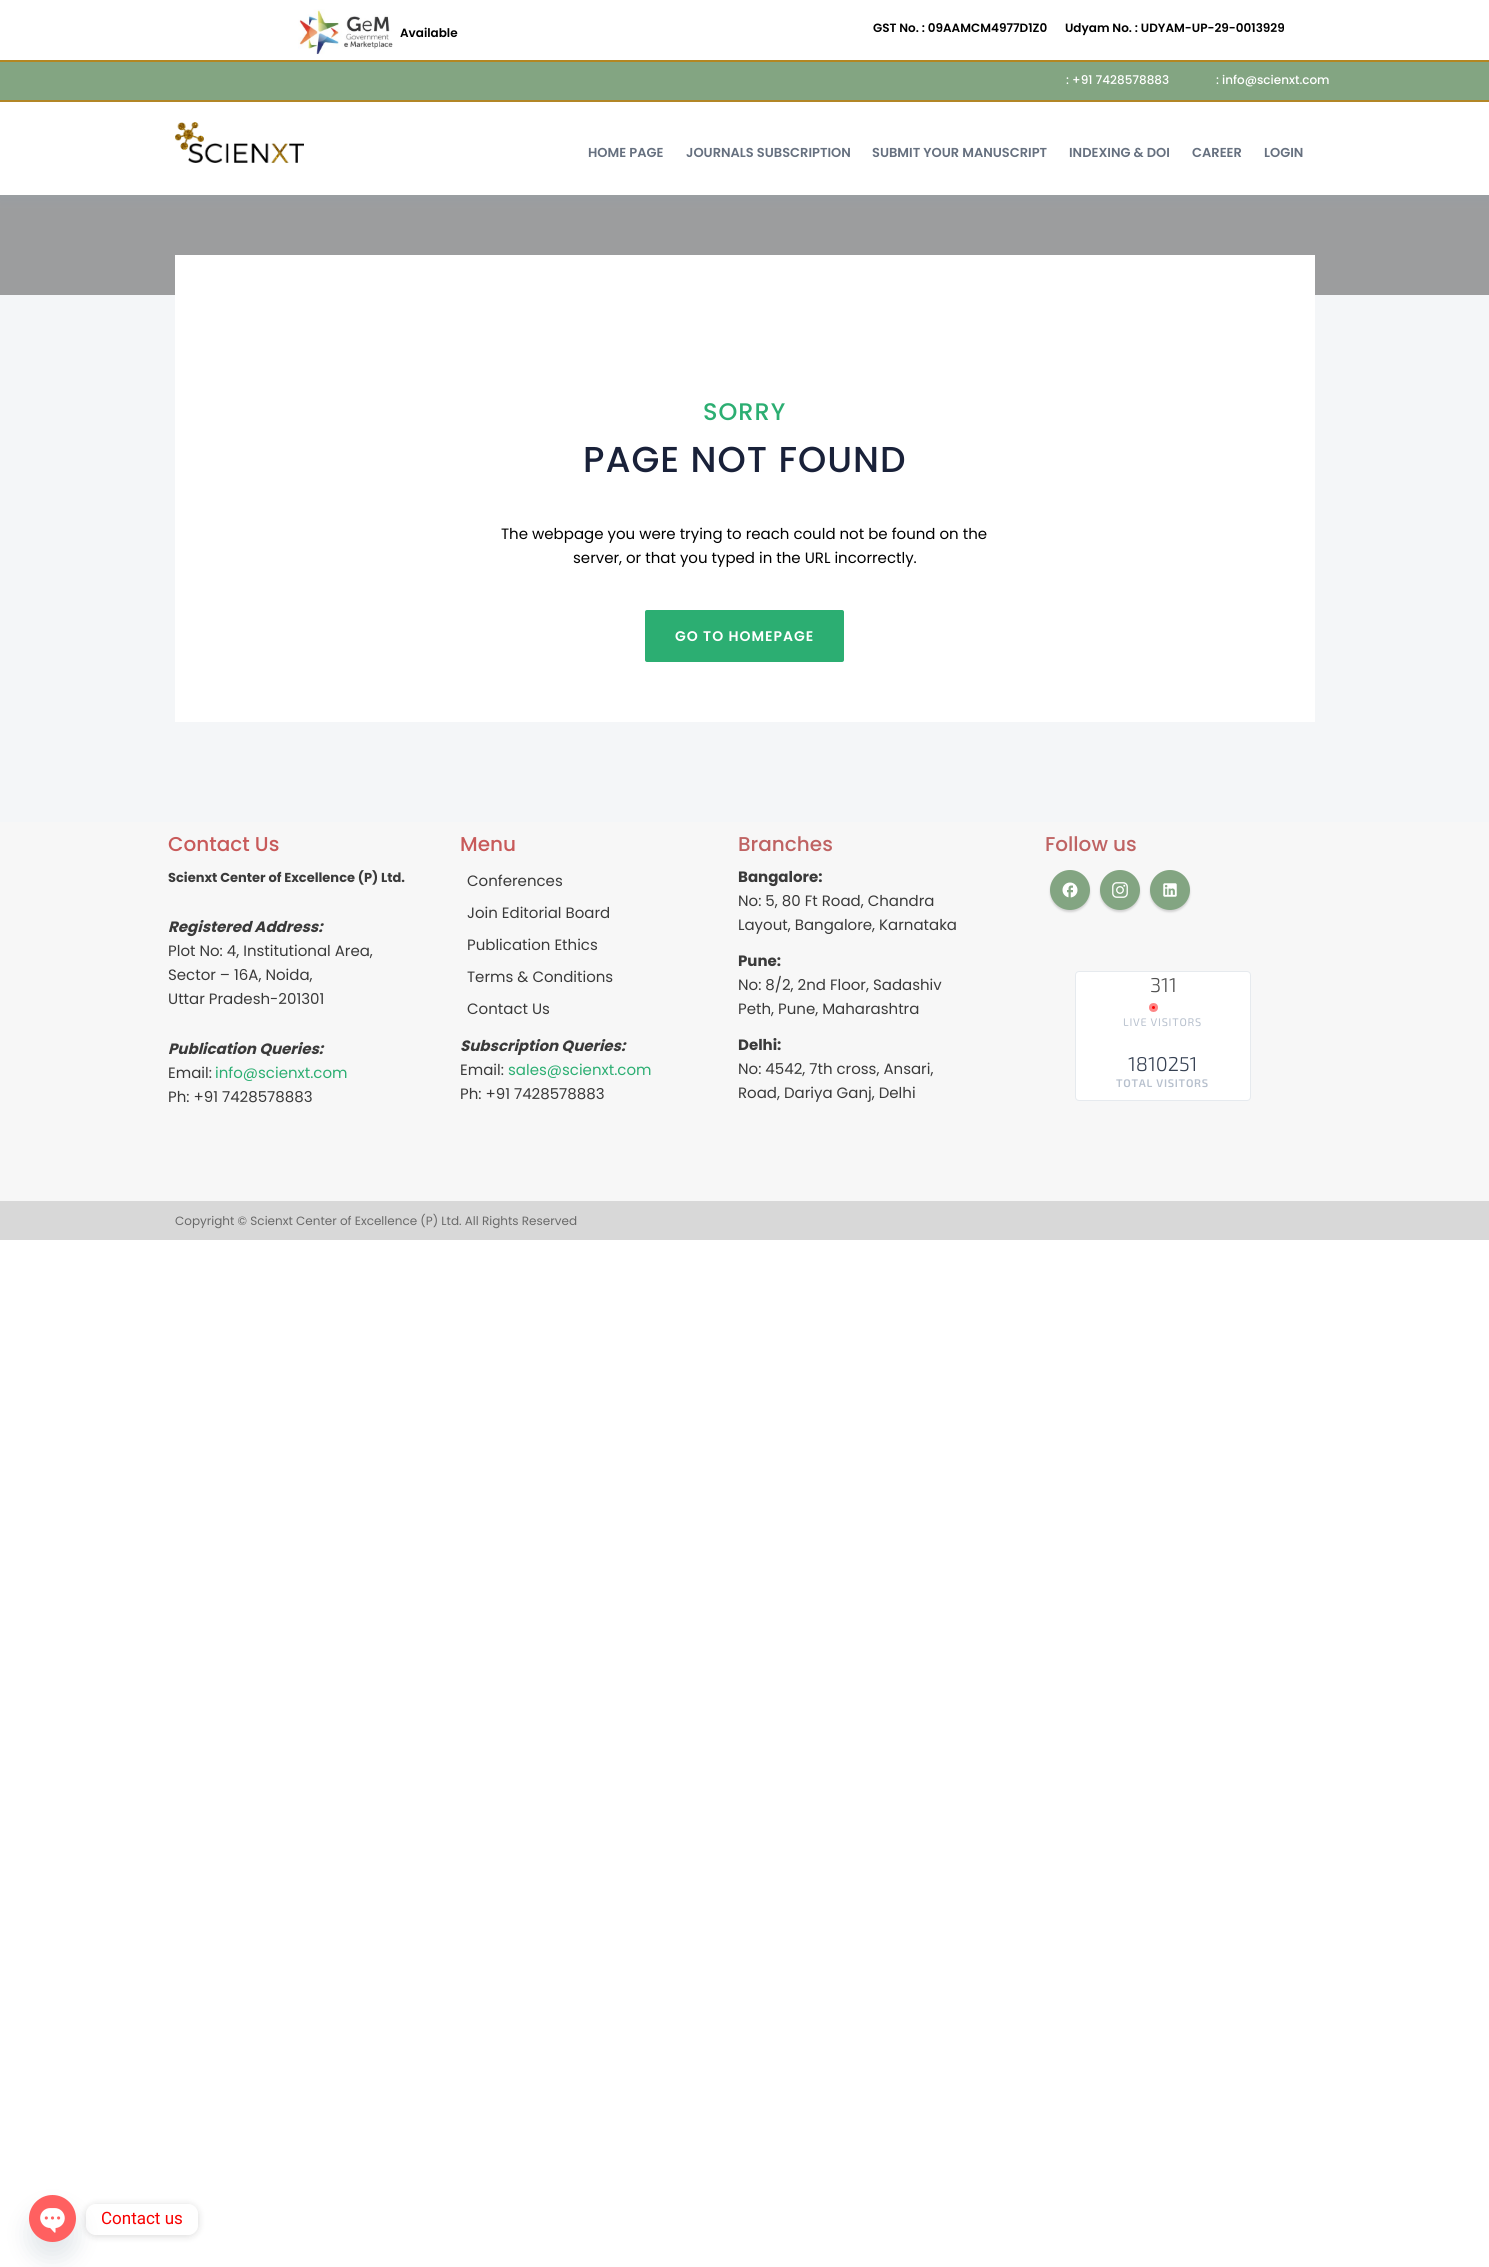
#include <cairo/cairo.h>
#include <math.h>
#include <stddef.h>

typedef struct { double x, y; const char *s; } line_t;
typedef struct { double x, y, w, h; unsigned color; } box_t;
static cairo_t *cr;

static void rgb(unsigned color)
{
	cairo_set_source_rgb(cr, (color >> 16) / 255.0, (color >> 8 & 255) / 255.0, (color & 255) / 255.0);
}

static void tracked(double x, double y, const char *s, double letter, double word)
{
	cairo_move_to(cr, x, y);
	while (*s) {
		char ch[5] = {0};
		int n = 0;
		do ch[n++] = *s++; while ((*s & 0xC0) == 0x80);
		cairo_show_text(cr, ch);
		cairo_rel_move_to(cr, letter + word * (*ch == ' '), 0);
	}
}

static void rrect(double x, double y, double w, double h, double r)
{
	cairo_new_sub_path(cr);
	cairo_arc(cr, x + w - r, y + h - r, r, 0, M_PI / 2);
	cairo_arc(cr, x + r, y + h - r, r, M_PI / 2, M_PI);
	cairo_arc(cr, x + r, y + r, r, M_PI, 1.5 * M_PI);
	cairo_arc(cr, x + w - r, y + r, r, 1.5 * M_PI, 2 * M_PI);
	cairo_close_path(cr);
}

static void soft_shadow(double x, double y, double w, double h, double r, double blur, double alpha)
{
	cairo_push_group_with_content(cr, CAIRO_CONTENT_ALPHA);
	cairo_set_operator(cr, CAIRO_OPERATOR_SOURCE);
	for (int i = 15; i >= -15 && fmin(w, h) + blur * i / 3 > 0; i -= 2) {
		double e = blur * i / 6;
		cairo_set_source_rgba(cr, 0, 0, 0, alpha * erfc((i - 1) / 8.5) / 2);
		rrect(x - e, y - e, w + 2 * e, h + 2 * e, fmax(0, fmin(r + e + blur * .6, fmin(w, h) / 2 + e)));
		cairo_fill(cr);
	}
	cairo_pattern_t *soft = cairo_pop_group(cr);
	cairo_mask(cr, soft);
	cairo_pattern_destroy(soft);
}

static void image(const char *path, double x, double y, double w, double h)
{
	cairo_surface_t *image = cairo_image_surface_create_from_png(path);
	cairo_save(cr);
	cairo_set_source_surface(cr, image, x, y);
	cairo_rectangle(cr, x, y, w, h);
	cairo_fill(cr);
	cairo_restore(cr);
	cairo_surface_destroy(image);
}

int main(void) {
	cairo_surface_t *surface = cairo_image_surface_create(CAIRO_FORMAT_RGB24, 1489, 2267);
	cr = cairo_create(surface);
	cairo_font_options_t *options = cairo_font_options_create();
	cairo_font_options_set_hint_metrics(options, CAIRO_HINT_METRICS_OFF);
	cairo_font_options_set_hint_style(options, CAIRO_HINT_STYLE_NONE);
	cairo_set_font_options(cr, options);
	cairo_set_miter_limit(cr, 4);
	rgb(0xffffff);
	cairo_paint(cr);
	rgb(0xf4f6f8);
	cairo_rectangle(cr, 0, 295, 1489, 527);
	cairo_fill(cr);
	image("img/1.png", 298, 9, 95, 46);
	{
		static const box_t items[] = {
			{0, 62, 1489, 38, 0x83a582},
			{0, 60, 1489, 2, 0xb38622},
			{0, 100, 1489, 2, 0xb38622},
			{0, 195, 1489, 100, 0x9c9d9e},
		};
		for (size_t i = 0; i < sizeof items / sizeof *items; i++) {
			rgb(items[i].color);
			cairo_rectangle(cr, items[i].x, items[i].y, items[i].w, items[i].h);
			cairo_fill(cr);
		}
	}
	rgb(0x90a1b4);
	soft_shadow(-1, 106, 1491, 95, 0, 4.5, 0.2);
	rgb(0xffffff);
	cairo_rectangle(cr, 0, 102, 1489, 93);
	cairo_fill(cr);
	image("img/2.png", 175, 122, 129, 41);
	cairo_rectangle(cr, 175, 255, 1140, 467);
	cairo_fill(cr);
	rgb(0x2cae72);
	rrect(645, 610, 199, 52, 2);
	cairo_fill(cr);
	rgb(0xf7f7f7);
	cairo_rectangle(cr, 0, 822, 1489, 379);
	cairo_fill(cr);
	rgb(0xd1d1d1);
	soft_shadow(1050, 872, 40, 40, 20, 1, 1);
	rgb(0x83a582);
	cairo_arc(cr, 1070, 890, 20, 0, 2 * M_PI);
	cairo_fill(cr);
	image("img/3.png", 1062, 882, 16, 16);
	rgb(0xd1d1d1);
	soft_shadow(1100, 872, 40, 40, 20, 1, 1);
	rgb(0x83a582);
	cairo_arc(cr, 1120, 890, 20, 0, 2 * M_PI);
	cairo_fill(cr);
	image("img/4.png", 1112, 882, 16, 16);
	rgb(0xd1d1d1);
	soft_shadow(1150, 872, 40, 40, 20, 1, 1);
	rgb(0x83a582);
	cairo_arc(cr, 1170, 890, 20, 0, 2 * M_PI);
	cairo_fill(cr);
	image("img/5.png", 1163, 883, 14, 14);
	rgb(0xffffff);
	rrect(1075.5, 971.5, 175, 129, 3.5);
	cairo_fill_preserve(cr);
	rgb(0xe6eaee);
	cairo_set_line_width(cr, 1);
	cairo_stroke(cr);
	rgb(0xfd8686);
	cairo_arc(cr, 1153.5, 1007.5, 4.5, 0, 2 * M_PI);
	cairo_fill(cr);
	rgb(0xff0000);
	cairo_arc(cr, 1153.5, 1007.5, 1.5, 0, 2 * M_PI);
	cairo_fill(cr);
	rgb(0xd8d8d8);
	cairo_rectangle(cr, 0, 1201, 1489, 39);
	cairo_fill(cr);
	rgb(0x49687e);
	soft_shadow(29, 2211, 47, 47, 23.5, 12, 0.16);
	cairo_save(cr);
	cairo_set_fill_rule(cr, CAIRO_FILL_RULE_EVEN_ODD);
	cairo_new_path(cr);
	cairo_move_to(cr, 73, 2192);
	cairo_line_to(cr, 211, 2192);
	cairo_line_to(cr, 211, 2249);
	cairo_line_to(cr, 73, 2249);
	cairo_close_path(cr);
	cairo_move_to(cr, 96, 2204);
	cairo_line_to(cr, 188, 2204);
	cairo_curve_to(cr, 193.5, 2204, 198, 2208.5, 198, 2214);
	cairo_line_to(cr, 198, 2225);
	cairo_curve_to(cr, 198, 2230.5, 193.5, 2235, 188, 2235);
	cairo_line_to(cr, 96, 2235);
	cairo_curve_to(cr, 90.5, 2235, 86, 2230.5, 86, 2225);
	cairo_line_to(cr, 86, 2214);
	cairo_curve_to(cr, 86, 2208.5, 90.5, 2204, 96, 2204);
	cairo_close_path(cr);
	cairo_clip(cr);
	rgb(0x000000);
	soft_shadow(86, 2205, 112, 31, 10, 4, 0.15);
	cairo_restore(cr);
	image("img/6.png", 29, 2195, 47, 47);
	cairo_select_font_face(cr, "Poppins SemiBold", CAIRO_FONT_SLANT_NORMAL, CAIRO_FONT_WEIGHT_NORMAL);
	cairo_set_font_size(cr, 12);
	rgb(0x000000);
	{
		static const line_t items[] = {
			{400, 37, "Available"},
			{873, 32, "GST No. : 09AAMCM4977D1Z0"},
			{1065, 32, "Udyam No. : UDYAM-UP-29-0013929"},
		};
		for (size_t i = 0; i < sizeof items / sizeof *items; i++) {
			cairo_move_to(cr, items[i].x, items[i].y);
			cairo_show_text(cr, items[i].s);
		}
	}
	cairo_select_font_face(cr, "Poppins Medium", CAIRO_FONT_SLANT_NORMAL, CAIRO_FONT_WEIGHT_NORMAL);
	rgb(0xffffff);
	cairo_move_to(cr, 1066, 84);
	cairo_show_text(cr, ": +91 7428578883");
	cairo_move_to(cr, 1216, 84);
	cairo_show_text(cr, ": info@scienxt.com");
	cairo_select_font_face(cr, "Poppins SemiBold", CAIRO_FONT_SLANT_NORMAL, CAIRO_FONT_WEIGHT_NORMAL);
	cairo_set_font_size(cr, 13);
	rgb(0x66707f);
	{
		static const line_t items[] = {
			{588, 157, "HOME PAGE"},
			{686, 157, "JOURNALS SUBSCRIPTION"},
			{872, 157, "SUBMIT YOUR MANUSCRIPT"},
			{1069, 157, "INDEXING & DOI"},
			{1192, 157, "CAREER"},
			{1264, 157, "LOGIN"},
		};
		for (size_t i = 0; i < sizeof items / sizeof *items; i++) {
			cairo_move_to(cr, items[i].x, items[i].y);
			cairo_show_text(cr, items[i].s);
		}
	}
	cairo_select_font_face(cr, "Poppins Medium", CAIRO_FONT_SLANT_NORMAL, CAIRO_FONT_WEIGHT_NORMAL);
	cairo_set_font_size(cr, 24);
	rgb(0x2cae72);
	tracked(703, 420, "SORRY", 1, 0);
	cairo_set_font_size(cr, 36);
	rgb(0x192139);
	tracked(583, 472, "PAGE NOT FOUND", 1, 0);
	cairo_select_font_face(cr, "Poppins", CAIRO_FONT_SLANT_NORMAL, CAIRO_FONT_WEIGHT_NORMAL);
	cairo_set_font_size(cr, 15);
	rgb(0x000000);
	cairo_move_to(cr, 501, 539);
	cairo_show_text(cr, "The webpage you were trying to reach could not be found on the");
	cairo_move_to(cr, 573, 563);
	cairo_show_text(cr, "server, or that you typed in the URL incorrectly.");
	cairo_select_font_face(cr, "Poppins SemiBold", CAIRO_FONT_SLANT_NORMAL, CAIRO_FONT_WEIGHT_NORMAL);
	cairo_set_font_size(cr, 14);
	rgb(0xffffff);
	tracked(675, 641, "GO TO HOMEPAGE", 1, 0);
	cairo_select_font_face(cr, "Poppins Medium", CAIRO_FONT_SLANT_NORMAL, CAIRO_FONT_WEIGHT_NORMAL);
	cairo_set_font_size(cr, 20);
	rgb(0xc85a5a);
	cairo_move_to(cr, 168, 851);
	cairo_show_text(cr, "Contact Us");
	cairo_select_font_face(cr, "Poppins", CAIRO_FONT_SLANT_NORMAL, CAIRO_FONT_WEIGHT_BOLD);
	cairo_set_font_size(cr, 13);
	rgb(0x3a3a3a);
	cairo_move_to(cr, 168, 882);
	cairo_show_text(cr, "Scienxt Center of Excellence (P) Ltd.");
	cairo_select_font_face(cr, "Poppins", CAIRO_FONT_SLANT_ITALIC, CAIRO_FONT_WEIGHT_BOLD);
	cairo_set_font_size(cr, 15);
	cairo_move_to(cr, 168, 932);
	cairo_show_text(cr, "Registered Address:");
	cairo_select_font_face(cr, "Poppins", CAIRO_FONT_SLANT_NORMAL, CAIRO_FONT_WEIGHT_NORMAL);
	{
		static const line_t items[] = {
			{168, 956, "Plot No: 4, Institutional Area,"},
			{168, 980, "Sector – 16A, Noida,"},
			{168, 1004, "Uttar Pradesh-201301"},
		};
		for (size_t i = 0; i < sizeof items / sizeof *items; i++) {
			cairo_move_to(cr, items[i].x, items[i].y);
			cairo_show_text(cr, items[i].s);
		}
	}
	cairo_select_font_face(cr, "Poppins", CAIRO_FONT_SLANT_ITALIC, CAIRO_FONT_WEIGHT_BOLD);
	cairo_move_to(cr, 168, 1054);
	cairo_show_text(cr, "Publication Queries:");
	cairo_select_font_face(cr, "Poppins", CAIRO_FONT_SLANT_NORMAL, CAIRO_FONT_WEIGHT_NORMAL);
	cairo_move_to(cr, 168, 1078);
	cairo_show_text(cr, "Email:");
	rgb(0x2cae72);
	cairo_move_to(cr, 215, 1078);
	cairo_show_text(cr, "info@scienxt.com");
	rgb(0x3a3a3a);
	cairo_move_to(cr, 168, 1102);
	cairo_show_text(cr, "Ph: +91 7428578883");
	cairo_select_font_face(cr, "Poppins Medium", CAIRO_FONT_SLANT_NORMAL, CAIRO_FONT_WEIGHT_NORMAL);
	cairo_set_font_size(cr, 20);
	rgb(0xc85a5a);
	cairo_move_to(cr, 460, 851);
	cairo_show_text(cr, "Menu");
	cairo_select_font_face(cr, "Poppins", CAIRO_FONT_SLANT_NORMAL, CAIRO_FONT_WEIGHT_NORMAL);
	cairo_set_font_size(cr, 15);
	rgb(0x3a3a3a);
	{
		static const line_t items[] = {
			{467, 886, "Conferences"},
			{467, 918, "Join Editorial Board"},
			{467, 950, "Publication Ethics"},
			{467, 982, "Terms & Conditions"},
			{467, 1014, "Contact Us"},
		};
		for (size_t i = 0; i < sizeof items / sizeof *items; i++) {
			cairo_move_to(cr, items[i].x, items[i].y);
			cairo_show_text(cr, items[i].s);
		}
	}
	cairo_select_font_face(cr, "Poppins", CAIRO_FONT_SLANT_ITALIC, CAIRO_FONT_WEIGHT_BOLD);
	cairo_move_to(cr, 460, 1051);
	cairo_show_text(cr, "Subscription Queries:");
	cairo_select_font_face(cr, "Poppins", CAIRO_FONT_SLANT_NORMAL, CAIRO_FONT_WEIGHT_NORMAL);
	cairo_move_to(cr, 460, 1075);
	cairo_show_text(cr, "Email:");
	rgb(0x2cae72);
	cairo_move_to(cr, 508, 1075);
	cairo_show_text(cr, "sales@scienxt.com");
	rgb(0x3a3a3a);
	cairo_move_to(cr, 460, 1099);
	cairo_show_text(cr, "Ph: +91 7428578883");
	cairo_select_font_face(cr, "Poppins Medium", CAIRO_FONT_SLANT_NORMAL, CAIRO_FONT_WEIGHT_NORMAL);
	cairo_set_font_size(cr, 20);
	rgb(0xbf6363);
	cairo_move_to(cr, 738, 851);
	cairo_show_text(cr, "Branches");
	cairo_select_font_face(cr, "Poppins", CAIRO_FONT_SLANT_NORMAL, CAIRO_FONT_WEIGHT_BOLD);
	cairo_set_font_size(cr, 15);
	rgb(0x3a3a3a);
	cairo_move_to(cr, 738, 882);
	cairo_show_text(cr, "Bangalore:");
	cairo_select_font_face(cr, "Poppins", CAIRO_FONT_SLANT_NORMAL, CAIRO_FONT_WEIGHT_NORMAL);
	cairo_move_to(cr, 738, 906);
	cairo_show_text(cr, "No: 5, 80 Ft Road, Chandra");
	cairo_move_to(cr, 738, 930);
	cairo_show_text(cr, "Layout, Bangalore, Karnataka");
	cairo_select_font_face(cr, "Poppins", CAIRO_FONT_SLANT_NORMAL, CAIRO_FONT_WEIGHT_BOLD);
	cairo_move_to(cr, 738, 966);
	cairo_show_text(cr, "Pune:");
	cairo_select_font_face(cr, "Poppins", CAIRO_FONT_SLANT_NORMAL, CAIRO_FONT_WEIGHT_NORMAL);
	cairo_move_to(cr, 738, 990);
	cairo_show_text(cr, "No: 8/2, 2nd Floor, Sadashiv");
	cairo_move_to(cr, 738, 1014);
	cairo_show_text(cr, "Peth, Pune, Maharashtra");
	cairo_select_font_face(cr, "Poppins", CAIRO_FONT_SLANT_NORMAL, CAIRO_FONT_WEIGHT_BOLD);
	cairo_move_to(cr, 738, 1050);
	cairo_show_text(cr, "Delhi:");
	cairo_select_font_face(cr, "Poppins", CAIRO_FONT_SLANT_NORMAL, CAIRO_FONT_WEIGHT_NORMAL);
	cairo_move_to(cr, 738, 1074);
	cairo_show_text(cr, "No: 4542, 7th cross, Ansari,");
	cairo_move_to(cr, 738, 1098);
	cairo_show_text(cr, "Road, Dariya Ganj, Delhi");
	cairo_select_font_face(cr, "Poppins Medium", CAIRO_FONT_SLANT_NORMAL, CAIRO_FONT_WEIGHT_NORMAL);
	cairo_set_font_size(cr, 20);
	rgb(0xbf6363);
	cairo_move_to(cr, 1045, 851);
	cairo_show_text(cr, "Follow us");
	cairo_select_font_face(cr, "Exo 2 Light", CAIRO_FONT_SLANT_NORMAL, CAIRO_FONT_WEIGHT_NORMAL);
	rgb(0x505050);
	cairo_move_to(cr, 1150, 992);
	cairo_show_text(cr, "311");
	cairo_select_font_face(cr, "Exo 2", CAIRO_FONT_SLANT_NORMAL, CAIRO_FONT_WEIGHT_NORMAL);
	cairo_set_font_size(cr, 11);
	rgb(0xb7c0cd);
	tracked(1123, 1026, "LIVE VISITORS", 0.75, 0);
	cairo_select_font_face(cr, "Exo 2 Light", CAIRO_FONT_SLANT_NORMAL, CAIRO_FONT_WEIGHT_NORMAL);
	cairo_set_font_size(cr, 20);
	rgb(0x354052);
	cairo_move_to(cr, 1128, 1071);
	cairo_show_text(cr, "1810251");
	cairo_select_font_face(cr, "Exo 2 SemiBold", CAIRO_FONT_SLANT_NORMAL, CAIRO_FONT_WEIGHT_NORMAL);
	cairo_set_font_size(cr, 11);
	rgb(0xb7c0cd);
	tracked(1116, 1087, "TOTAL VISITORS", 0.75, 0);
	cairo_select_font_face(cr, "Poppins", CAIRO_FONT_SLANT_NORMAL, CAIRO_FONT_WEIGHT_NORMAL);
	cairo_set_font_size(cr, 12);
	rgb(0x696969);
	cairo_move_to(cr, 175, 1225);
	cairo_show_text(cr, "Copyright © Scienxt Center of Excellence (P) Ltd. All Rights Reserved");
	cairo_select_font_face(cr, "Roboto", CAIRO_FONT_SLANT_NORMAL, CAIRO_FONT_WEIGHT_NORMAL);
	cairo_set_font_size(cr, 17);
	rgb(0xf80000);
	cairo_move_to(cr, 101, 2224);
	cairo_show_text(cr, "Contact us");
	cairo_surface_write_to_png(surface, "page.png");
	cairo_font_options_destroy(options);
	cairo_destroy(cr);
	cairo_surface_destroy(surface);
	return 0;
}
